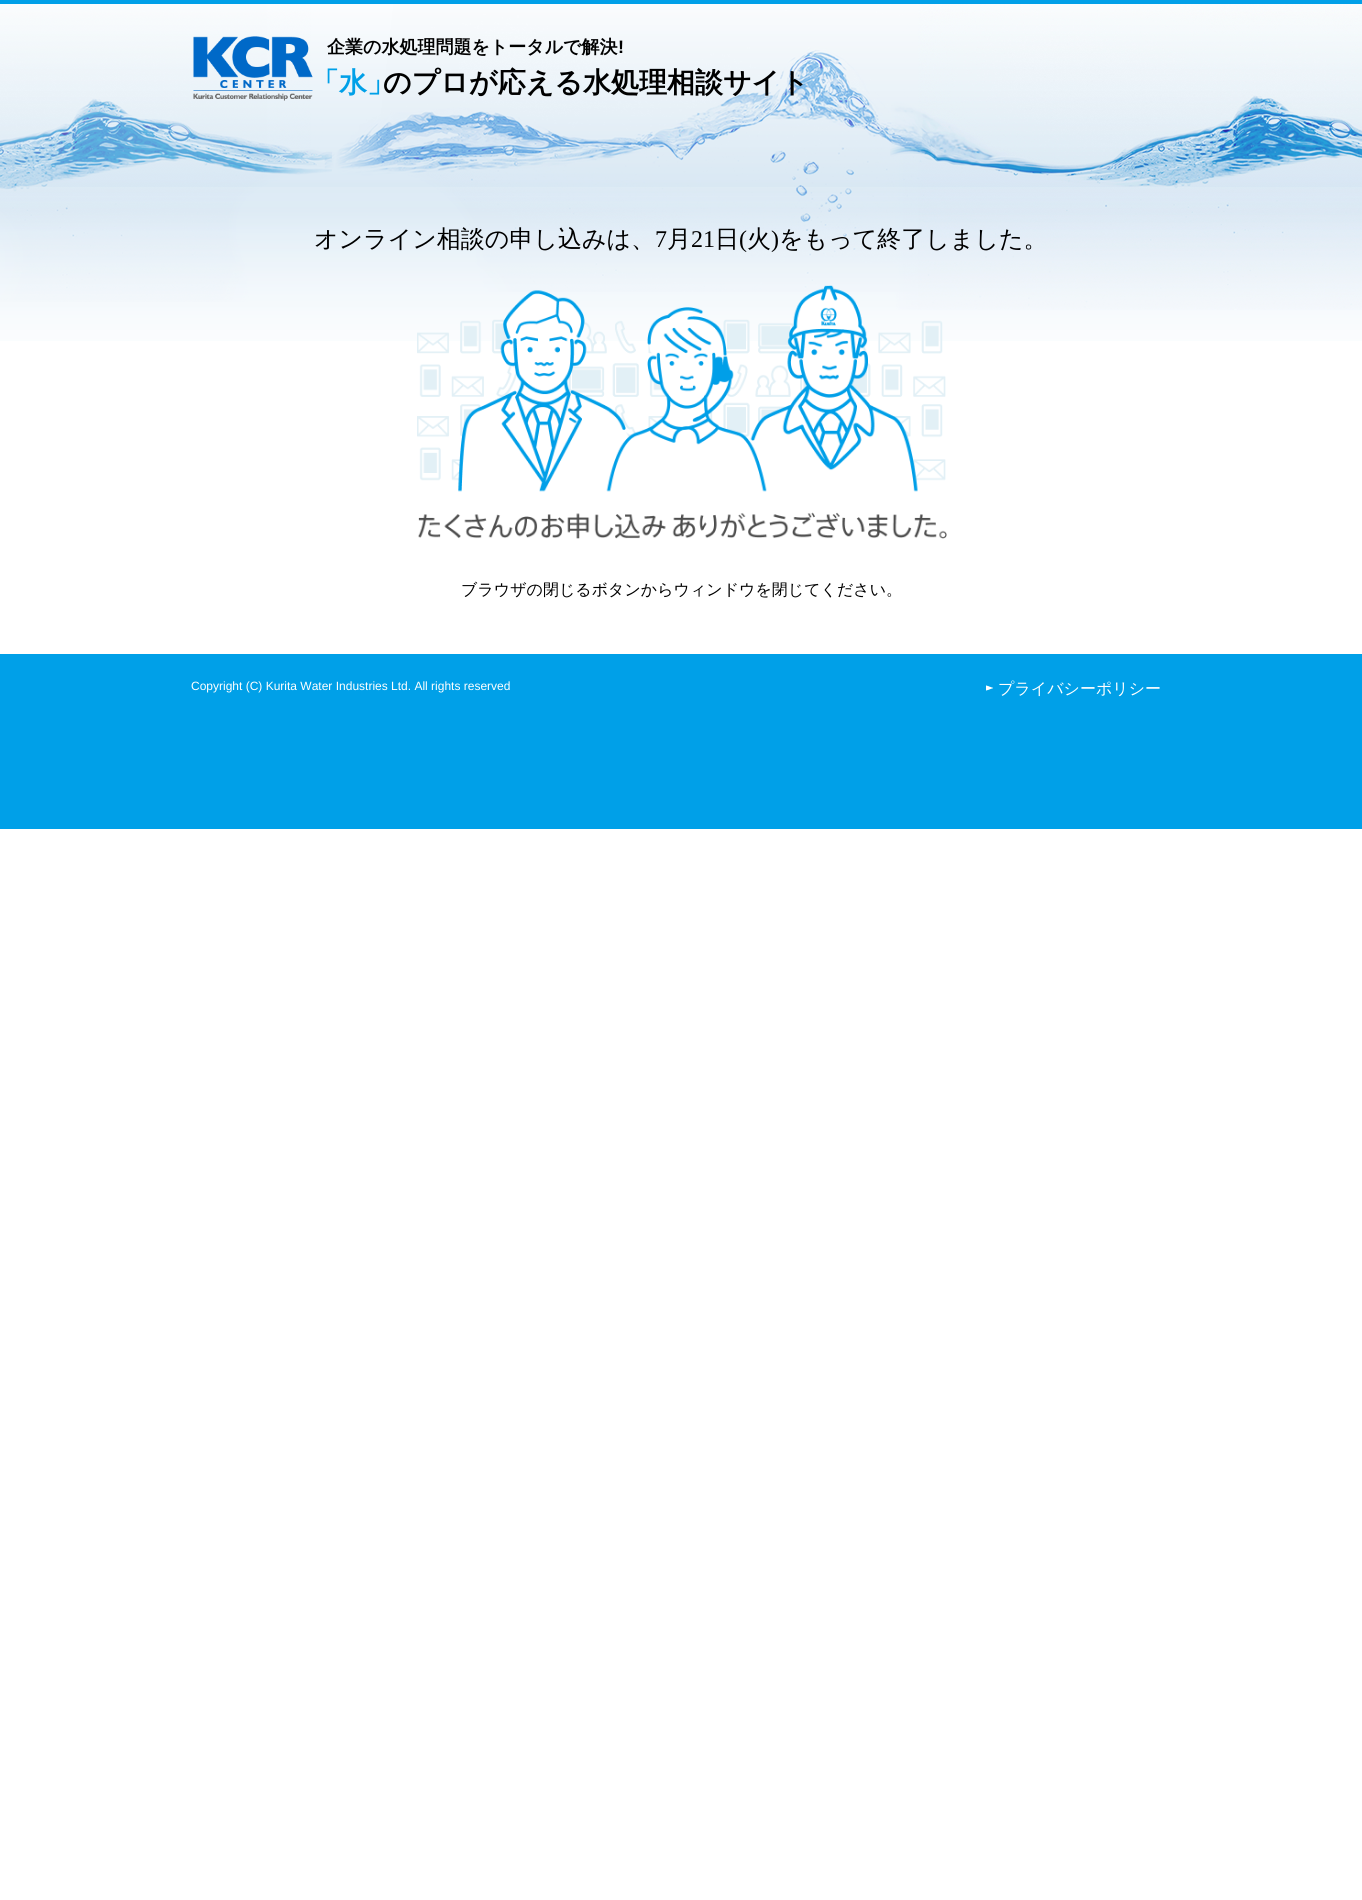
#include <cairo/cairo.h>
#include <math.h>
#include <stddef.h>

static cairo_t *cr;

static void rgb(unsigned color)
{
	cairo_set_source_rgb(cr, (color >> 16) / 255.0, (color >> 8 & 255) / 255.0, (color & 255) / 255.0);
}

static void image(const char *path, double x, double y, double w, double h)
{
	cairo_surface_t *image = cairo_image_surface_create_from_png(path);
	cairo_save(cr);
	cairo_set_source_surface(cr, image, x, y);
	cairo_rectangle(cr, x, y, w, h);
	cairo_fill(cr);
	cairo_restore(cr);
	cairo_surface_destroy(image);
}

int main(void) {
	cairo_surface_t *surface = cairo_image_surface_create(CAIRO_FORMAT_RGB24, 1362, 1900);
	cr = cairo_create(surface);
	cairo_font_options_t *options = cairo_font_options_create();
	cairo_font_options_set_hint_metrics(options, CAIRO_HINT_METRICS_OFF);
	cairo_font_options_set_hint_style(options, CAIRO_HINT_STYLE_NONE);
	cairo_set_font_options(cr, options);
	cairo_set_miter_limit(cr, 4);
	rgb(0xffffff);
	cairo_paint(cr);
	image("img/1.png", 0, 0, 1362, 341);
	image("img/2.png", 193, 36, 120, 65);
	image("img/3.png", 417, 285, 530, 254);
	rgb(0x00a0e8);
	cairo_rectangle(cr, 0, 654, 1362, 175);
	cairo_fill(cr);
	image("img/4.png", 986, 685, 7, 6);
	cairo_select_font_face(cr, "WenQuanYi Zen Hei", CAIRO_FONT_SLANT_NORMAL, CAIRO_FONT_WEIGHT_BOLD);
	cairo_set_font_size(cr, 18);
	rgb(0x000000);
	cairo_move_to(cr, 327, 53);
	cairo_show_text(cr, "企業の水処理問題をトータルで解決");
	cairo_select_font_face(cr, "Liberation Sans", CAIRO_FONT_SLANT_NORMAL, CAIRO_FONT_WEIGHT_BOLD);
	cairo_move_to(cr, 618, 53);
	cairo_show_text(cr, "!");
	cairo_select_font_face(cr, "WenQuanYi Zen Hei", CAIRO_FONT_SLANT_NORMAL, CAIRO_FONT_WEIGHT_BOLD);
	cairo_set_font_size(cr, 28);
	rgb(0x00a0e8);
	cairo_move_to(cr, 311, 92);
	cairo_show_text(cr, "「水」");
	rgb(0x000000);
	cairo_move_to(cr, 383, 92);
	cairo_show_text(cr, "のプロが応える水処理相談サイト");
	cairo_select_font_face(cr, "WenQuanYi Zen Hei Medium", CAIRO_FONT_SLANT_NORMAL, CAIRO_FONT_WEIGHT_NORMAL);
	cairo_set_font_size(cr, 24);
	cairo_move_to(cr, 314, 247);
	cairo_show_text(cr, "オンライン相談の申し込みは、");
	cairo_select_font_face(cr, "Liberation Serif", CAIRO_FONT_SLANT_NORMAL, CAIRO_FONT_WEIGHT_NORMAL);
	cairo_move_to(cr, 655, 247);
	cairo_show_text(cr, "7");
	cairo_select_font_face(cr, "WenQuanYi Zen Hei Medium", CAIRO_FONT_SLANT_NORMAL, CAIRO_FONT_WEIGHT_NORMAL);
	cairo_move_to(cr, 667, 247);
	cairo_show_text(cr, "月");
	cairo_select_font_face(cr, "Liberation Serif", CAIRO_FONT_SLANT_NORMAL, CAIRO_FONT_WEIGHT_NORMAL);
	cairo_move_to(cr, 691, 247);
	cairo_show_text(cr, "21");
	cairo_select_font_face(cr, "WenQuanYi Zen Hei Medium", CAIRO_FONT_SLANT_NORMAL, CAIRO_FONT_WEIGHT_NORMAL);
	cairo_move_to(cr, 715, 247);
	cairo_show_text(cr, "日");
	cairo_select_font_face(cr, "Liberation Serif", CAIRO_FONT_SLANT_NORMAL, CAIRO_FONT_WEIGHT_NORMAL);
	cairo_move_to(cr, 739, 247);
	cairo_show_text(cr, "(");
	cairo_select_font_face(cr, "WenQuanYi Zen Hei Medium", CAIRO_FONT_SLANT_NORMAL, CAIRO_FONT_WEIGHT_NORMAL);
	cairo_move_to(cr, 747, 247);
	cairo_show_text(cr, "火");
	cairo_select_font_face(cr, "Liberation Serif", CAIRO_FONT_SLANT_NORMAL, CAIRO_FONT_WEIGHT_NORMAL);
	cairo_move_to(cr, 771, 247);
	cairo_show_text(cr, ")");
	cairo_select_font_face(cr, "WenQuanYi Zen Hei Medium", CAIRO_FONT_SLANT_NORMAL, CAIRO_FONT_WEIGHT_NORMAL);
	cairo_move_to(cr, 779, 247);
	cairo_show_text(cr, "をもって終了しました。");
	cairo_set_font_size(cr, 16);
	cairo_move_to(cr, 461, 595);
	cairo_show_text(cr, "ブラウザの閉じるボタンからウィンドウを閉じてください。");
	cairo_select_font_face(cr, "Liberation Sans", CAIRO_FONT_SLANT_NORMAL, CAIRO_FONT_WEIGHT_NORMAL);
	cairo_set_font_size(cr, 12);
	rgb(0xffffff);
	cairo_move_to(cr, 191, 690);
	cairo_show_text(cr, "Copyright (C) Kurita Water Industries Ltd. All rights reserved");
	cairo_select_font_face(cr, "WenQuanYi Zen Hei Medium", CAIRO_FONT_SLANT_NORMAL, CAIRO_FONT_WEIGHT_NORMAL);
	cairo_set_font_size(cr, 16);
	cairo_move_to(cr, 998, 694);
	cairo_show_text(cr, "プライバシーポリシー");
	cairo_surface_write_to_png(surface, "page.png");
	cairo_font_options_destroy(options);
	cairo_destroy(cr);
	cairo_surface_destroy(surface);
	return 0;
}
